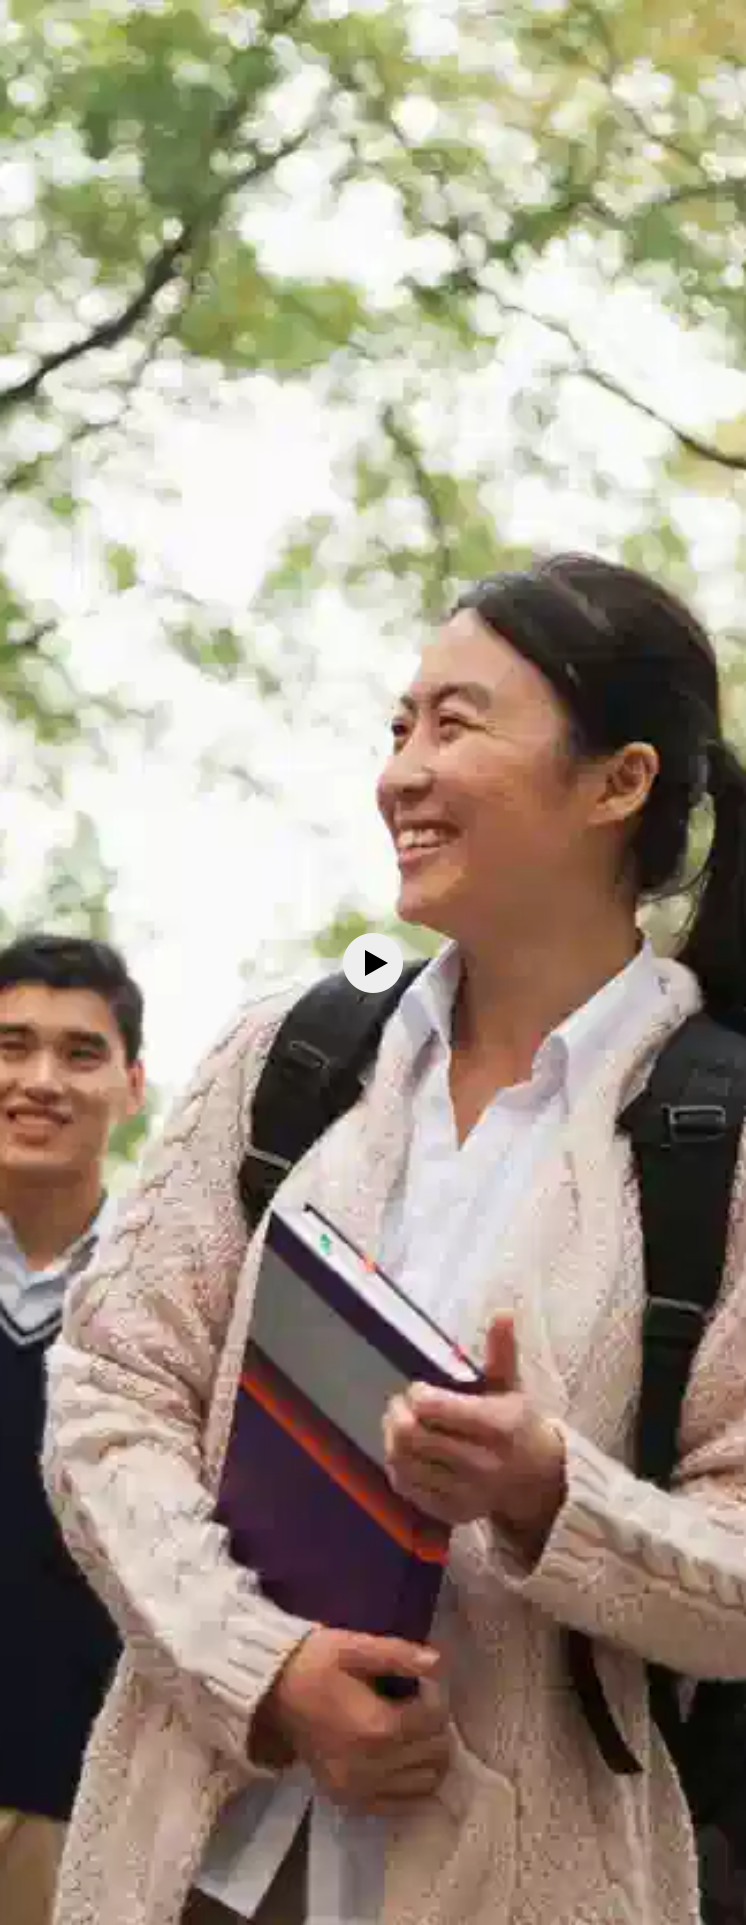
#include <cairo/cairo.h>
#include <math.h>
#include <stddef.h>

static cairo_t *cr;

static void rgb(unsigned color)
{
	cairo_set_source_rgb(cr, (color >> 16) / 255.0, (color >> 8 & 255) / 255.0, (color & 255) / 255.0);
}

static void image(const char *path, double x, double y, double w, double h)
{
	cairo_surface_t *image = cairo_image_surface_create_from_png(path);
	cairo_save(cr);
	cairo_set_source_surface(cr, image, x, y);
	cairo_rectangle(cr, x, y, w, h);
	cairo_fill(cr);
	cairo_restore(cr);
	cairo_surface_destroy(image);
}

int main(void) {
	cairo_surface_t *surface = cairo_image_surface_create(CAIRO_FORMAT_RGB24, 746, 1925);
	cr = cairo_create(surface);
	cairo_font_options_t *options = cairo_font_options_create();
	cairo_font_options_set_hint_metrics(options, CAIRO_HINT_METRICS_OFF);
	cairo_font_options_set_hint_style(options, CAIRO_HINT_STYLE_NONE);
	cairo_set_font_options(cr, options);
	cairo_set_miter_limit(cr, 4);
	rgb(0xffffff);
	cairo_paint(cr);
	image("img/1.png", 0, 0, 746, 1925);
	rgb(0xeeeeee);
	cairo_arc(cr, 373, 963, 30, 0, 2 * M_PI);
	cairo_fill(cr);
	rgb(0x000000);
	cairo_new_path(cr);
	cairo_move_to(cr, 388, 963);
	cairo_line_to(cr, 365, 950);
	cairo_line_to(cr, 365, 976);
	cairo_close_path(cr);
	cairo_fill(cr);
	cairo_surface_write_to_png(surface, "page.png");
	cairo_font_options_destroy(options);
	cairo_destroy(cr);
	cairo_surface_destroy(surface);
	return 0;
}
